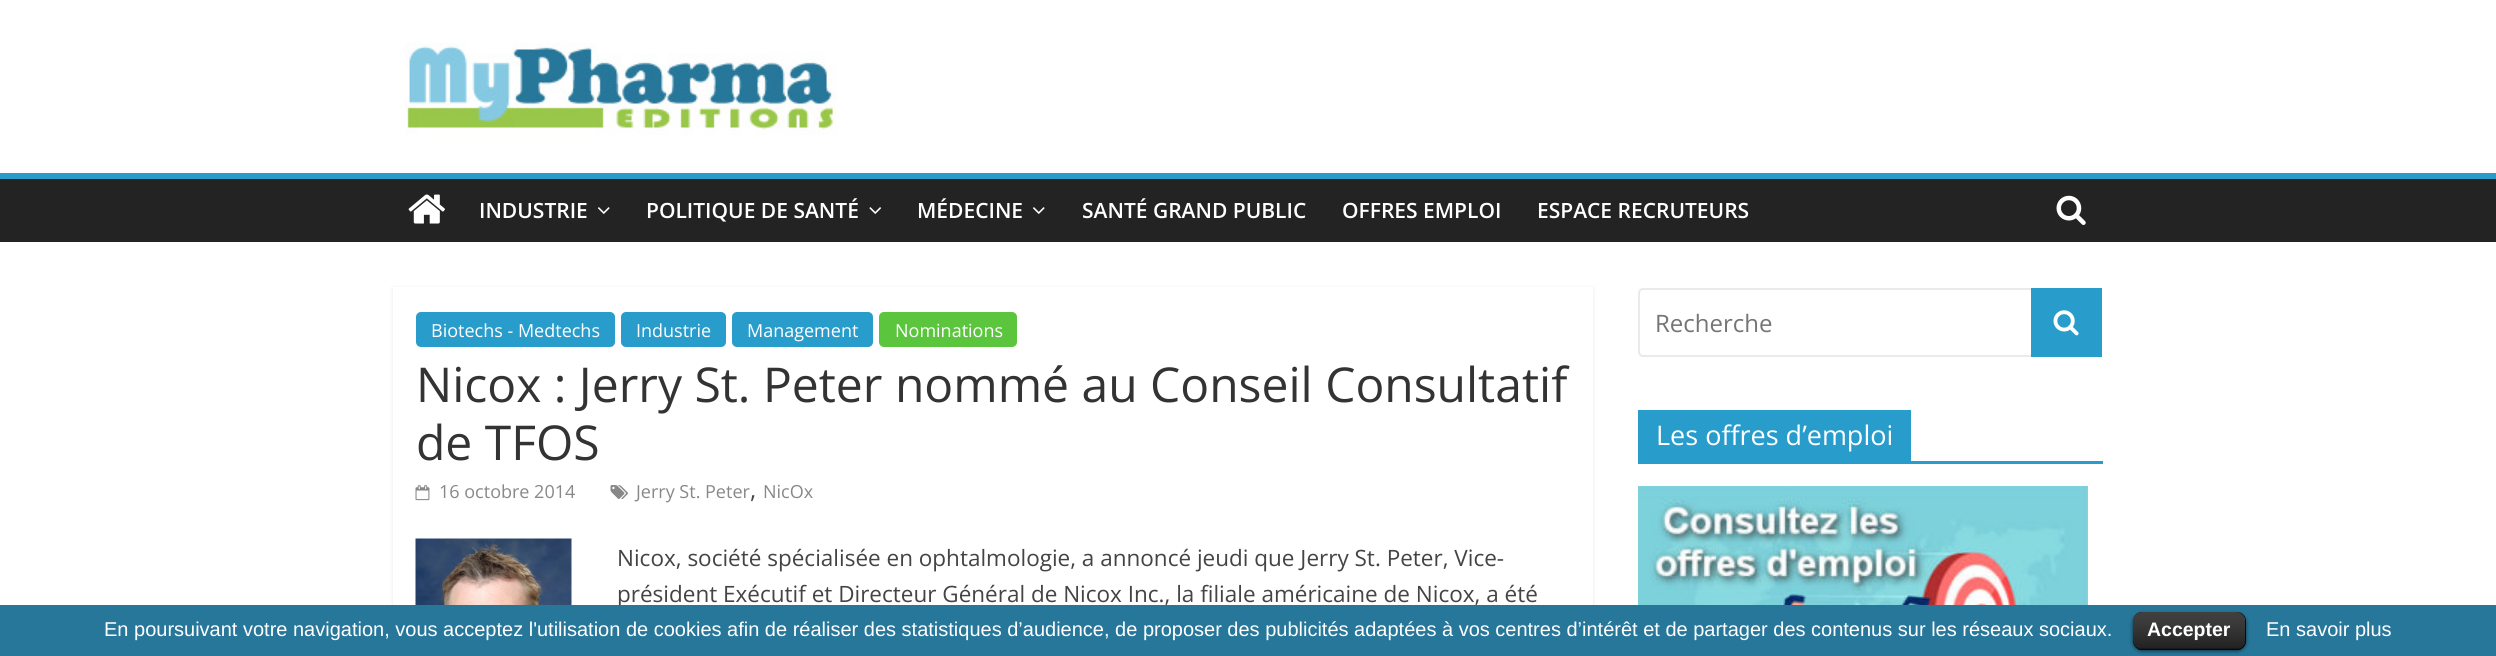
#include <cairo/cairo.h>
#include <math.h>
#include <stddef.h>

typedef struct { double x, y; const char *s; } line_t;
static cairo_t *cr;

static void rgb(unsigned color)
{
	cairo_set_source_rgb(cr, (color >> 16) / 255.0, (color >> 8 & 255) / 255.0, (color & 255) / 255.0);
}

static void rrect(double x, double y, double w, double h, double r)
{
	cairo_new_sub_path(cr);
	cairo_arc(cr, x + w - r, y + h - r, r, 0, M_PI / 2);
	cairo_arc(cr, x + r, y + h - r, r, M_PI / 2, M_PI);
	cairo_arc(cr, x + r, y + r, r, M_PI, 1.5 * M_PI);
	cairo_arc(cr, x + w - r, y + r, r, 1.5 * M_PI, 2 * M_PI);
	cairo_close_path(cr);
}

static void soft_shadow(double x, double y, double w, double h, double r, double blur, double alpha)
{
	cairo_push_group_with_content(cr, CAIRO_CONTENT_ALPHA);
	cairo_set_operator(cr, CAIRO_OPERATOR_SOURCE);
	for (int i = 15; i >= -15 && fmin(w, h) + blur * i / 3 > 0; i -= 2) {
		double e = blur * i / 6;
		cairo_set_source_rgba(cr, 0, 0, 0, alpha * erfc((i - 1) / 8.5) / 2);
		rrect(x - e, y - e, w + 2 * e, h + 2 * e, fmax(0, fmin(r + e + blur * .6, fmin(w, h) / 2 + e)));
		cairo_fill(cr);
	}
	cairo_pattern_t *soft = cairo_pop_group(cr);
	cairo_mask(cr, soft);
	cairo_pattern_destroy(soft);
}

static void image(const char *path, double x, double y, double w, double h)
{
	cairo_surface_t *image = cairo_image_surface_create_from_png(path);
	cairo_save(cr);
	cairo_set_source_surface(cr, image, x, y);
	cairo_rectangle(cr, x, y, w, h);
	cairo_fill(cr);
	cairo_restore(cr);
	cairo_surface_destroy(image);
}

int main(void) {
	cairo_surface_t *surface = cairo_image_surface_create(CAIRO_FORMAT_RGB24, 2496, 656);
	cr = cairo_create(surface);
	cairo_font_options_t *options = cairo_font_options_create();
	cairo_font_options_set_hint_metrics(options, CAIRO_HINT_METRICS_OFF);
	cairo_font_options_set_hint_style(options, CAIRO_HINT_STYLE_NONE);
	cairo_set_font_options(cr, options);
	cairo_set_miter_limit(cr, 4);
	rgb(0xffffff);
	cairo_paint(cr);
	image("img/1.png", 405, 42, 432, 93);
	rgb(0x232323);
	cairo_rectangle(cr, 0, 179, 2496, 63);
	cairo_fill(cr);
	rgb(0x289dcc);
	cairo_rectangle(cr, 0, 173, 2496, 6);
	cairo_fill(cr);
	image("img/2.png", 408, 194, 37, 30);
	image("img/3.png", 598, 207, 12, 7);
	image("img/4.png", 869, 207, 12, 7);
	image("img/3.png", 1033, 207, 12, 7);
	image("img/5.png", 2056, 195, 30, 30);
	cairo_save(cr);
	cairo_set_fill_rule(cr, CAIRO_FILL_RULE_EVEN_ODD);
	cairo_new_path(cr);
	cairo_move_to(cr, 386, 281);
	cairo_line_to(cr, 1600, 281);
	cairo_line_to(cr, 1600, 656);
	cairo_line_to(cr, 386, 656);
	cairo_close_path(cr);
	cairo_move_to(cr, 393, 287);
	cairo_line_to(cr, 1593, 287);
	cairo_line_to(cr, 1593, 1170);
	cairo_line_to(cr, 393, 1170);
	cairo_close_path(cr);
	cairo_clip(cr);
	rgb(0x000000);
	soft_shadow(393, 288, 1200, 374, 0, 2, 0.1);
	cairo_restore(cr);
	rrect(416, 312, 199, 35, 5);
	cairo_fill(cr);
	rrect(621, 312, 105, 35, 5);
	cairo_fill(cr);
	rrect(732, 312, 141, 35, 5);
	cairo_fill(cr);
	rgb(0x5bc63d);
	rrect(879, 312, 138, 35, 5);
	cairo_fill(cr);
	image("img/6.png", 415, 485, 15, 16);
	image("img/7.png", 610, 485, 18, 14);
	image("img/8.png", 415, 538, 157, 67);
	rrect(1639, 289, 394, 67, 4);
	rgb(0xeaeaea);
	cairo_stroke(cr);
	rgb(0x289dcc);
	cairo_rectangle(cr, 2031, 288, 71, 69);
	cairo_fill(cr);
	image("img/9.png", 2053, 310, 26, 26);
	cairo_rectangle(cr, 1638, 461, 465, 3);
	cairo_fill(cr);
	cairo_rectangle(cr, 1638, 410, 273, 51);
	cairo_fill(cr);
	image("img/10.png", 1638, 486, 450, 119);
	cairo_select_font_face(cr, "Open Sans SemiBold", CAIRO_FONT_SLANT_NORMAL, CAIRO_FONT_WEIGHT_NORMAL);
	cairo_set_font_size(cr, 21);
	rgb(0xffffff);
	{
		static const line_t items[] = {
			{479, 218, "INDUSTRIE"},
			{646, 218, "POLITIQUE DE SANTÉ"},
			{917, 218, "MÉDECINE"},
			{1082, 218, "SANTÉ GRAND PUBLIC"},
			{1342, 218, "OFFRES EMPLOI"},
			{1537, 218, "ESPACE RECRUTEURS"},
		};
		for (size_t i = 0; i < sizeof items / sizeof *items; i++) {
			cairo_move_to(cr, items[i].x, items[i].y);
			cairo_show_text(cr, items[i].s);
		}
	}
	cairo_select_font_face(cr, "Open Sans", CAIRO_FONT_SLANT_NORMAL, CAIRO_FONT_WEIGHT_NORMAL);
	cairo_set_font_size(cr, 18);
	{
		static const line_t items[] = {
			{431, 337, "Biotechs - Medtechs"},
			{636, 337, "Industrie"},
			{747, 337, "Management"},
			{895, 337, "Nominations"},
		};
		for (size_t i = 0; i < sizeof items / sizeof *items; i++) {
			cairo_move_to(cr, items[i].x, items[i].y);
			cairo_show_text(cr, items[i].s);
		}
	}
	cairo_set_font_size(cr, 48);
	rgb(0x333333);
	cairo_move_to(cr, 416, 402);
	cairo_show_text(cr, "Nicox : Jerry St. Peter nommé au Conseil Consultatif");
	cairo_move_to(cr, 416, 460);
	cairo_show_text(cr, "de TFOS");
	cairo_set_font_size(cr, 18);
	rgb(0x888888);
	cairo_move_to(cr, 439, 498);
	cairo_show_text(cr, "16 octobre 2014");
	cairo_move_to(cr, 636, 498);
	cairo_show_text(cr, "Jerry St. Peter");
	cairo_set_font_size(cr, 24);
	rgb(0x444444);
	cairo_move_to(cr, 750, 498);
	cairo_show_text(cr, ",");
	cairo_set_font_size(cr, 18);
	rgb(0x888888);
	cairo_move_to(cr, 763, 498);
	cairo_show_text(cr, "NicOx");
	cairo_set_font_size(cr, 22.5);
	rgb(0x444444);
	cairo_move_to(cr, 617, 566);
	cairo_show_text(cr, "Nicox, société spécialisée en ophtalmologie, a annoncé jeudi que Jerry St. Peter, Vice-");
	cairo_move_to(cr, 617, 602);
	cairo_show_text(cr, "président Exécutif et Directeur Général de Nicox Inc., la filiale américaine de Nicox, a été");
	cairo_set_font_size(cr, 24);
	rgb(0x757575);
	cairo_move_to(cr, 1655, 332);
	cairo_show_text(cr, "Recherche");
	cairo_set_font_size(cr, 27);
	rgb(0xffffff);
	cairo_move_to(cr, 1656, 445);
	cairo_show_text(cr, "Les offres d’emploi");
	rgb(0x27779a);
	cairo_rectangle(cr, 0, 605, 2496, 51);
	cairo_fill(cr);
	cairo_select_font_face(cr, "Liberation Sans", CAIRO_FONT_SLANT_NORMAL, CAIRO_FONT_WEIGHT_NORMAL);
	cairo_set_font_size(cr, 20);
	rgb(0xffffff);
	cairo_move_to(cr, 104, 636);
	cairo_show_text(cr, "En poursuivant votre navigation, vous acceptez l'utilisation de cookies afin de réaliser des statistiques d’audience, de proposer des publicités adaptées à vos centres d’intérêt et de partager des contenus sur les réseaux sociaux.");
	rgb(0x000000);
	soft_shadow(2133, 614, 113, 37, 9, 2, 0.6);
	rgb(0x000000);
	rrect(2133, 612, 113, 38, 9);
	cairo_fill(cr);
	image("img/11.png", 2133, 612, 113, 38);
	cairo_set_source_rgba(cr, 0, 0, 0, 0.25);
	cairo_rectangle(cr, 2138, 648, 103, 2);
	cairo_fill(cr);
	cairo_select_font_face(cr, "Liberation Sans", CAIRO_FONT_SLANT_NORMAL, CAIRO_FONT_WEIGHT_BOLD);
	cairo_set_font_size(cr, 19.5);
	rgb(0xffffff);
	cairo_move_to(cr, 2147, 636);
	cairo_show_text(cr, "Accepter");
	cairo_select_font_face(cr, "Liberation Sans", CAIRO_FONT_SLANT_NORMAL, CAIRO_FONT_WEIGHT_NORMAL);
	cairo_set_font_size(cr, 20);
	cairo_move_to(cr, 2266, 636);
	cairo_show_text(cr, "En savoir plus");
	cairo_surface_write_to_png(surface, "page.png");
	cairo_font_options_destroy(options);
	cairo_destroy(cr);
	cairo_surface_destroy(surface);
	return 0;
}
